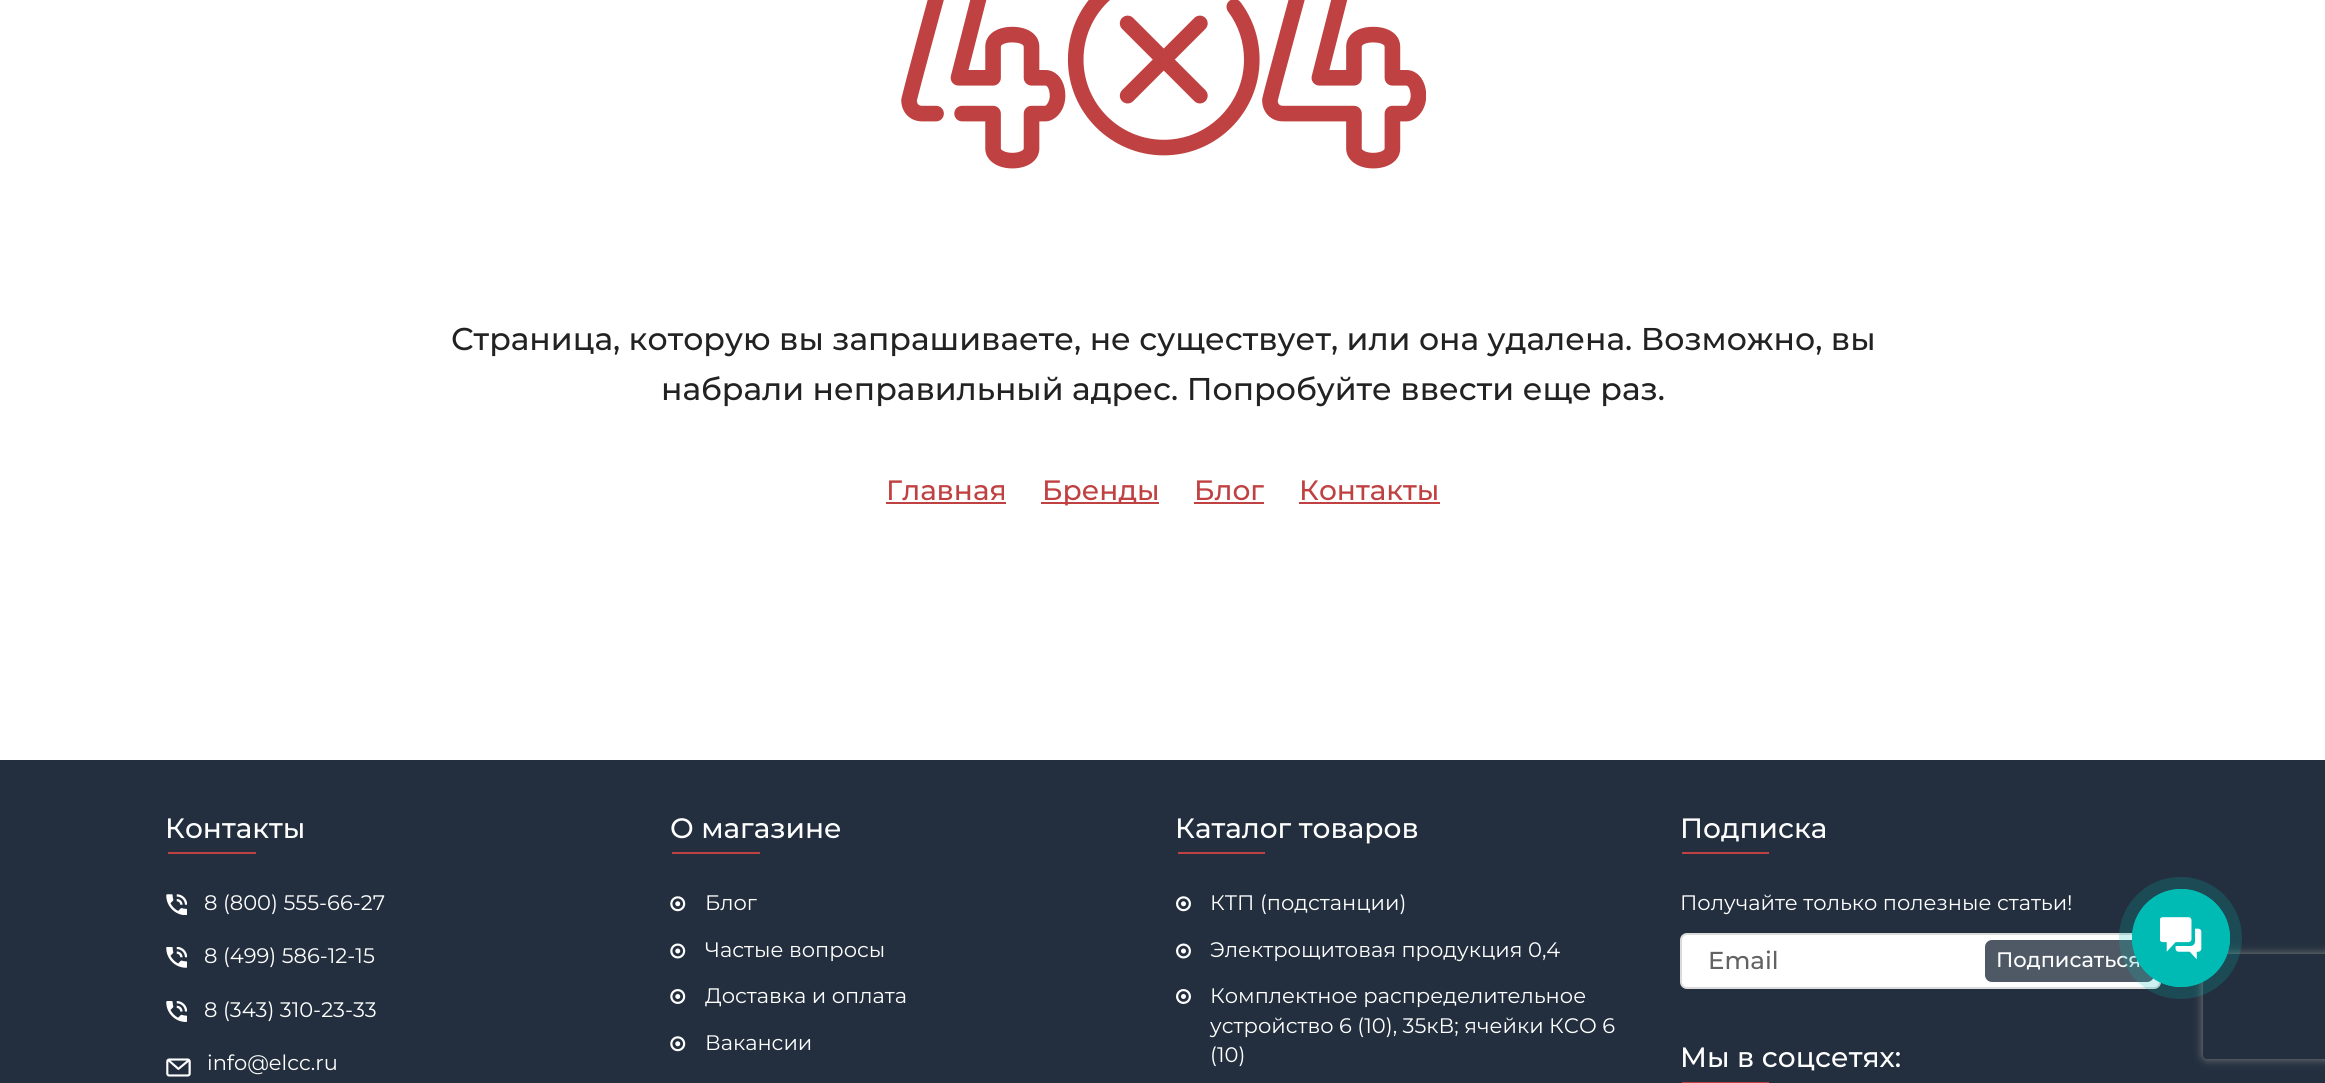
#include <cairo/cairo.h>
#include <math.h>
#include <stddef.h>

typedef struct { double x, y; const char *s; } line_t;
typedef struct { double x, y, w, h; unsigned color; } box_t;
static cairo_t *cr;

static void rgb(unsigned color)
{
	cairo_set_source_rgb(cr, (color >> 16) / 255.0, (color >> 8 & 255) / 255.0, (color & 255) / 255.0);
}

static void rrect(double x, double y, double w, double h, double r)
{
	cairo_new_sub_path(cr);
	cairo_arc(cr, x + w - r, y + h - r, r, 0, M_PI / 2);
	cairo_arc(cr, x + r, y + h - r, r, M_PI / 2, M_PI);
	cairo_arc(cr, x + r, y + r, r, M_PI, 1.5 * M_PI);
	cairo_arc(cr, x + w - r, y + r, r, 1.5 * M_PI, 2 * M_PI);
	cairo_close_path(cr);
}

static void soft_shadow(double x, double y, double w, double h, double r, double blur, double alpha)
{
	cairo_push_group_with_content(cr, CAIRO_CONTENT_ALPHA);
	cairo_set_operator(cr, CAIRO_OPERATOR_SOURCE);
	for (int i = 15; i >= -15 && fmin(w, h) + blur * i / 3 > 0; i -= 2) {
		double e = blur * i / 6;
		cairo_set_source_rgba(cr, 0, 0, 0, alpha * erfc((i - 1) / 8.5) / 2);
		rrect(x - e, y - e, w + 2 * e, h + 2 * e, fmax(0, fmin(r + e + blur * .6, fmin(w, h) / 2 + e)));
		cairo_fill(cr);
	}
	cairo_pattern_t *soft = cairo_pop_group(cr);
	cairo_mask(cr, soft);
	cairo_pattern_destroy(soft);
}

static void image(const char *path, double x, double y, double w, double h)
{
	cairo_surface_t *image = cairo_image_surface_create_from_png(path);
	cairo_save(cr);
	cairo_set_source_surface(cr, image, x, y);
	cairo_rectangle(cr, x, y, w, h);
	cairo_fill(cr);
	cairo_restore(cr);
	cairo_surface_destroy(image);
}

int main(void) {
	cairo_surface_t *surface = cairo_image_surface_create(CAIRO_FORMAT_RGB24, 2325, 1083);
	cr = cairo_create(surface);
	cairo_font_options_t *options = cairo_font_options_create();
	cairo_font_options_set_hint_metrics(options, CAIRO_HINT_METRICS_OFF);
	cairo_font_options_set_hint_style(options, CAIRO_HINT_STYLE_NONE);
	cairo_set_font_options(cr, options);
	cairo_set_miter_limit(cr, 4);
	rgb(0xffffff);
	cairo_paint(cr);
	image("img/1.png", 901, 0, 525, 169);
	{
		static const box_t items[] = {
			{886, 502, 120, 2, 0xc04141},
			{1041, 502, 118, 2, 0xc04141},
			{1194, 502, 70, 2, 0xc04141},
			{1299, 502, 141, 2, 0xc04141},
			{0, 760, 2325, 323, 0x232f3e},
			{168, 852, 88, 2, 0xc04141},
		};
		for (size_t i = 0; i < sizeof items / sizeof *items; i++) {
			rgb(items[i].color);
			cairo_rectangle(cr, items[i].x, items[i].y, items[i].w, items[i].h);
			cairo_fill(cr);
		}
	}
	image("img/2.png", 166, 894, 21, 21);
	image("img/3.png", 166, 947, 21, 21);
	image("img/4.png", 166, 1001, 21, 21);
	image("img/5.png", 166, 1058, 25, 19);
	cairo_rectangle(cr, 672, 852, 88, 2);
	cairo_fill(cr);
	image("img/6.png", 670, 896, 16, 16);
	image("img/7.png", 670, 943, 16, 16);
	image("img/8.png", 670, 989, 16, 15);
	image("img/6.png", 670, 1036, 16, 16);
	cairo_rectangle(cr, 1178, 852, 87, 2);
	cairo_fill(cr);
	image("img/9.png", 1176, 896, 15, 16);
	image("img/10.png", 1176, 943, 15, 16);
	image("img/11.png", 1176, 989, 15, 15);
	cairo_rectangle(cr, 1682, 852, 87, 2);
	cairo_fill(cr);
	rgb(0xffffff);
	rrect(1681, 934, 479, 54, 6);
	cairo_fill_preserve(cr);
	rgb(0xdbdbdb);
	cairo_stroke(cr);
	rgb(0x4f5965);
	rrect(1985, 940, 169, 42, 7);
	cairo_fill(cr);
	rgb(0xc04141);
	cairo_rectangle(cr, 1682, 1082, 87, 1);
	cairo_fill(cr);
	cairo_save(cr);
	cairo_set_fill_rule(cr, CAIRO_FILL_RULE_EVEN_ODD);
	cairo_new_path(cr);
	cairo_move_to(cr, 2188, 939);
	cairo_line_to(cr, 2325, 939);
	cairo_line_to(cr, 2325, 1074);
	cairo_line_to(cr, 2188, 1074);
	cairo_close_path(cr);
	cairo_move_to(cr, 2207, 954);
	cairo_line_to(cr, 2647, 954);
	cairo_curve_to(cr, 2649, 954, 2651, 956, 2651, 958);
	cairo_line_to(cr, 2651, 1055);
	cairo_curve_to(cr, 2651, 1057, 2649, 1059, 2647, 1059);
	cairo_line_to(cr, 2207, 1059);
	cairo_curve_to(cr, 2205, 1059, 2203, 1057, 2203, 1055);
	cairo_line_to(cr, 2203, 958);
	cairo_curve_to(cr, 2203, 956, 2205, 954, 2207, 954);
	cairo_close_path(cr);
	cairo_clip(cr);
	rgb(0x808080);
	soft_shadow(2203, 954, 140, 105, 4, 4.5, 1);
	cairo_restore(cr);
	cairo_select_font_face(cr, "Montserrat Medium", CAIRO_FONT_SLANT_NORMAL, CAIRO_FONT_WEIGHT_NORMAL);
	cairo_set_font_size(cr, 31.5);
	rgb(0x222222);
	cairo_move_to(cr, 451, 350);
	cairo_show_text(cr, "Страница, которую вы запрашиваете, не существует, или она удалена. Возможно, вы");
	cairo_move_to(cr, 661, 400);
	cairo_show_text(cr, "набрали неправильный адрес. Попробуйте ввести еще раз.");
	cairo_set_font_size(cr, 28);
	rgb(0xc04141);
	{
		static const line_t items[] = {
			{886, 500, "Главная"},
			{1042, 500, "Бренды"},
			{1194, 500, "Блог"},
			{1299, 500, "Контакты"},
		};
		for (size_t i = 0; i < sizeof items / sizeof *items; i++) {
			cairo_move_to(cr, items[i].x, items[i].y);
			cairo_show_text(cr, items[i].s);
		}
	}
	rgb(0xffffff);
	cairo_move_to(cr, 165, 838);
	cairo_show_text(cr, "Контакты");
	cairo_select_font_face(cr, "Montserrat", CAIRO_FONT_SLANT_NORMAL, CAIRO_FONT_WEIGHT_NORMAL);
	cairo_set_font_size(cr, 21);
	{
		static const line_t items[] = {
			{204, 910, "8 (800) 555-66-27"},
			{204, 963, "8 (499) 586-12-15"},
			{204, 1017, "8 (343) 310-23-33"},
			{207, 1070, "info@elcc.ru"},
		};
		for (size_t i = 0; i < sizeof items / sizeof *items; i++) {
			cairo_move_to(cr, items[i].x, items[i].y);
			cairo_show_text(cr, items[i].s);
		}
	}
	cairo_select_font_face(cr, "Montserrat Medium", CAIRO_FONT_SLANT_NORMAL, CAIRO_FONT_WEIGHT_NORMAL);
	cairo_set_font_size(cr, 28);
	cairo_move_to(cr, 670, 838);
	cairo_show_text(cr, "О магазине");
	cairo_select_font_face(cr, "Montserrat", CAIRO_FONT_SLANT_NORMAL, CAIRO_FONT_WEIGHT_NORMAL);
	cairo_set_font_size(cr, 21);
	{
		static const line_t items[] = {
			{705, 910, "Блог"},
			{705, 957, "Частые вопросы"},
			{705, 1003, "Доставка и оплата"},
			{705, 1050, "Вакансии"},
		};
		for (size_t i = 0; i < sizeof items / sizeof *items; i++) {
			cairo_move_to(cr, items[i].x, items[i].y);
			cairo_show_text(cr, items[i].s);
		}
	}
	cairo_select_font_face(cr, "Montserrat Medium", CAIRO_FONT_SLANT_NORMAL, CAIRO_FONT_WEIGHT_NORMAL);
	cairo_set_font_size(cr, 28);
	cairo_move_to(cr, 1175, 838);
	cairo_show_text(cr, "Каталог товаров");
	cairo_select_font_face(cr, "Montserrat", CAIRO_FONT_SLANT_NORMAL, CAIRO_FONT_WEIGHT_NORMAL);
	cairo_set_font_size(cr, 21);
	{
		static const line_t items[] = {
			{1210, 910, "КТП (подстанции)"},
			{1210, 957, "Электрощитовая продукция 0,4"},
			{1210, 1003, "Комплектное распределительное"},
			{1210, 1033, "устройство 6 (10), 35кВ; ячейки КСО 6"},
			{1210, 1062, "(10)"},
		};
		for (size_t i = 0; i < sizeof items / sizeof *items; i++) {
			cairo_move_to(cr, items[i].x, items[i].y);
			cairo_show_text(cr, items[i].s);
		}
	}
	cairo_select_font_face(cr, "Montserrat Medium", CAIRO_FONT_SLANT_NORMAL, CAIRO_FONT_WEIGHT_NORMAL);
	cairo_set_font_size(cr, 28);
	cairo_move_to(cr, 1680, 838);
	cairo_show_text(cr, "Подписка");
	cairo_select_font_face(cr, "Montserrat", CAIRO_FONT_SLANT_NORMAL, CAIRO_FONT_WEIGHT_NORMAL);
	cairo_set_font_size(cr, 21);
	cairo_move_to(cr, 1680, 910);
	cairo_show_text(cr, "Получайте только полезные статьи!");
	cairo_select_font_face(cr, "Montserrat Medium", CAIRO_FONT_SLANT_NORMAL, CAIRO_FONT_WEIGHT_NORMAL);
	cairo_set_font_size(cr, 24.5);
	rgb(0x626262);
	cairo_move_to(cr, 1708, 969);
	cairo_show_text(cr, "Email");
	cairo_set_font_size(cr, 21);
	rgb(0xffffff);
	cairo_move_to(cr, 1996, 967);
	cairo_show_text(cr, "Подписаться");
	cairo_set_font_size(cr, 28);
	cairo_move_to(cr, 1680, 1067);
	cairo_show_text(cr, "Мы в соцсетях:");
	cairo_set_source_rgba(cr, 0, 0.733, 0.706, 0.2);
	rrect(2119, 877, 123, 122, 61);
	cairo_fill(cr);
	cairo_arc(cr, 2181, 938, 48.5, 0, 2 * M_PI);
	rgb(0x00bbb4);
	cairo_set_line_width(cr, 1);
	cairo_stroke(cr);
	cairo_arc(cr, 2181, 938, 49, 0, 2 * M_PI);
	cairo_fill(cr);
	image("img/12.png", 2160, 917, 42, 42);
	cairo_surface_write_to_png(surface, "page.png");
	cairo_font_options_destroy(options);
	cairo_destroy(cr);
	cairo_surface_destroy(surface);
	return 0;
}
